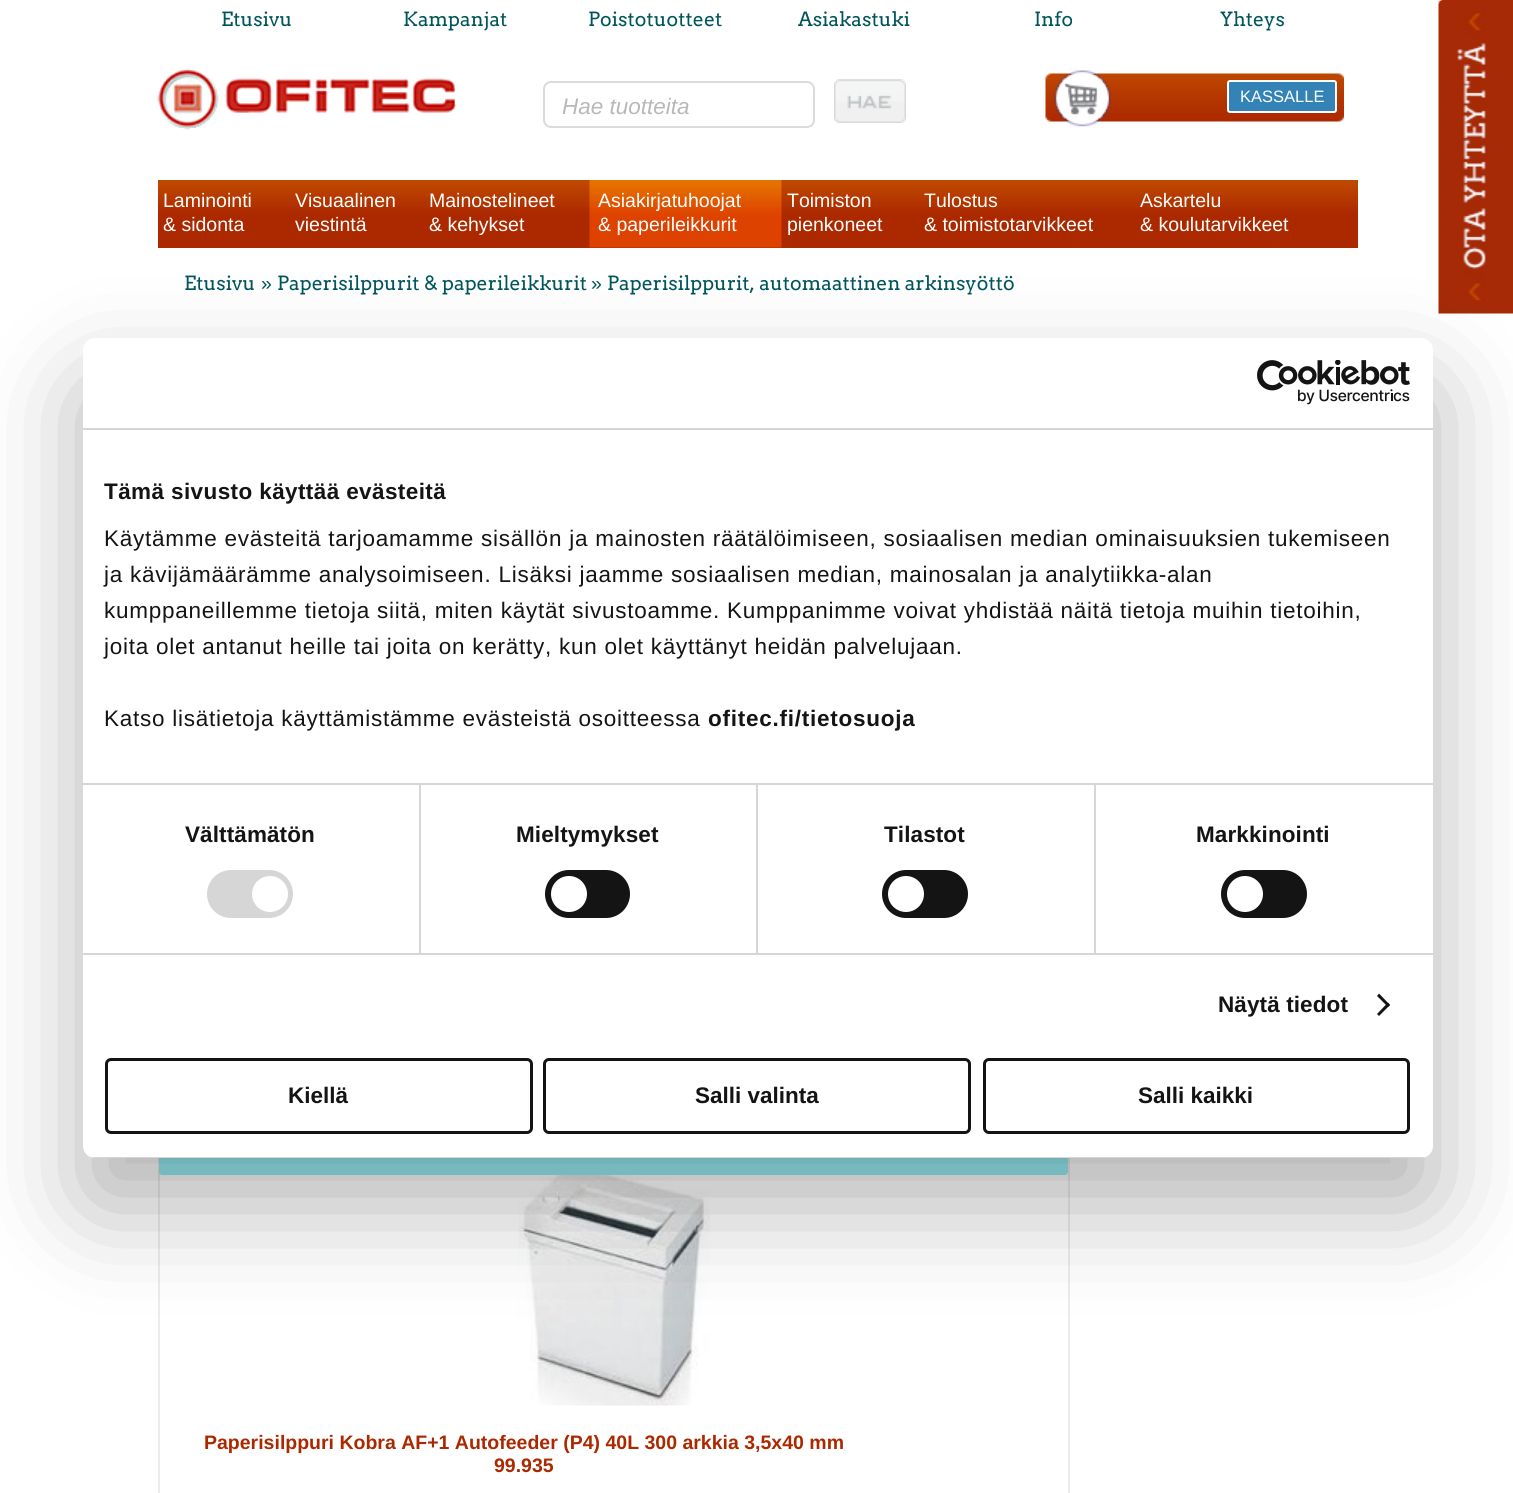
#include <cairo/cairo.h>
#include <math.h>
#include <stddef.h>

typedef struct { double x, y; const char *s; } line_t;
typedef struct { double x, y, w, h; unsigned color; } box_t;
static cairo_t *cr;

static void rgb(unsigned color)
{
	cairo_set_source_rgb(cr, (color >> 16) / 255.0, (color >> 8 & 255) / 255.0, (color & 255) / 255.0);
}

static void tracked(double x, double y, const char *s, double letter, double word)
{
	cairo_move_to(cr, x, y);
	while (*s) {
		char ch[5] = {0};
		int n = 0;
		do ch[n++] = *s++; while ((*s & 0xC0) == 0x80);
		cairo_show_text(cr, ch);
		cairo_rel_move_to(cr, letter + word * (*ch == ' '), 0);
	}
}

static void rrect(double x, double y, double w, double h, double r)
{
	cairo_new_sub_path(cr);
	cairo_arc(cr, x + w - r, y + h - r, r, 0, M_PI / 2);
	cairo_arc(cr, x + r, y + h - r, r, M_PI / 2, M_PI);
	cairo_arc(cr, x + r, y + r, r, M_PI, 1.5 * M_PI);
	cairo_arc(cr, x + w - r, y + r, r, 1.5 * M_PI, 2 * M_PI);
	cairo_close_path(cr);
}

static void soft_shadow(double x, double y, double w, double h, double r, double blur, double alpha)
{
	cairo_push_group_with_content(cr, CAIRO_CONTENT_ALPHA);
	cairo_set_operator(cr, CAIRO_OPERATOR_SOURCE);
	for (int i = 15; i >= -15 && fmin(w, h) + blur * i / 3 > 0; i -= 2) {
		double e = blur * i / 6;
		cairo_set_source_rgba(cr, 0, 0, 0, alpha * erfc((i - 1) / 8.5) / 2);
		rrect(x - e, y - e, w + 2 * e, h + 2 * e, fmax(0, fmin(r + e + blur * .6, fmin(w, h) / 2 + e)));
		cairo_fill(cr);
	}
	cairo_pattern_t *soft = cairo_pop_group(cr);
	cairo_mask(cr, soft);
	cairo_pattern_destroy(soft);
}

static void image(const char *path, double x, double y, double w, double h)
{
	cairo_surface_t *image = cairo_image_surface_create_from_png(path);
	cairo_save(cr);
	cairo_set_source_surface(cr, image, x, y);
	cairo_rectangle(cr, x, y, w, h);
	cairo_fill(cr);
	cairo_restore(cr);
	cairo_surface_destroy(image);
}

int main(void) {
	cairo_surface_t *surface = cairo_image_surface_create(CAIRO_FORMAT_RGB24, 1513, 1493);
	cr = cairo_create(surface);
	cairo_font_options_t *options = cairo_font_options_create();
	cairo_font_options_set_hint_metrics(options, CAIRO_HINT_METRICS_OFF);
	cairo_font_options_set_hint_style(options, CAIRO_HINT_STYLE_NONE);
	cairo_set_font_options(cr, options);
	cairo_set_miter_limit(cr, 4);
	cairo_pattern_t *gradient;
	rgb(0xffffff);
	cairo_paint(cr);
	image("img/1.png", 1438, 0, 75, 314);
	image("img/2.png", 157, 68, 300, 62);
	rrect(544, 82, 270, 45, 7);
	rgb(0xdbdbdb);
	cairo_stroke(cr);
	image("img/3.png", 834, 79, 72, 44);
	image("img/4.png", 837, 79, 65, 1);
	image("img/5.png", 1045, 70, 299, 57);
	rgb(0x3383b6);
	rrect(1228, 81, 108, 31, 2);
	cairo_fill_preserve(cr);
	rgb(0xffffff);
	cairo_stroke(cr);
	gradient = cairo_pattern_create_linear(758, 180, 758, 248);
	cairo_pattern_add_color_stop_rgba(gradient, 0, 0.753, 0.29, 0, 1);
	cairo_pattern_add_color_stop_rgba(gradient, 0.5, 0.675, 0.161, 0, 1);
	cairo_pattern_add_color_stop_rgba(gradient, 1, 0.675, 0.161, 0, 1);
	cairo_set_source(cr, gradient);
	cairo_pattern_destroy(gradient);
	cairo_rectangle(cr, 158, 180, 1200, 68);
	cairo_fill(cr);
	image("img/6.png", 589, 180, 193, 68);
	cairo_rectangle(cr, 159, 1126, 910, 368);
	rgb(0xececec);
	cairo_stroke(cr);
	rgb(0x98eef5);
	rrect(159, 1127, 909, 48, 3);
	cairo_fill(cr);
	image("img/7.png", 518, 1175, 192, 231);
	rgb(0x000000);
	soft_shadow(83, 386, 1350, 820, 12, 51, 0.3);
	rgb(0xffffff);
	rrect(83, 338, 1350, 820, 12);
	cairo_fill(cr);
	rgb(0xd6d6d6);
	cairo_rectangle(cr, 83, 428, 1350, 2);
	cairo_fill(cr);
	image("img/8.png", 1257, 360, 153, 45);
	{
		static const box_t items[] = {
			{83, 783, 1350, 2, 0xd6d6d6},
			{83, 953, 1350, 2, 0xd6d6d6},
			{419, 785, 2, 168, 0xd6d6d6},
		};
		for (size_t i = 0; i < sizeof items / sizeof *items; i++) {
			rgb(items[i].color);
			cairo_rectangle(cr, items[i].x, items[i].y, items[i].w, items[i].h);
			cairo_fill(cr);
		}
	}
	rrect(207, 870, 86, 48, 24);
	cairo_fill(cr);
	rgb(0xffffff);
	cairo_arc(cr, 270, 894, 18, 0, 2 * M_PI);
	cairo_fill(cr);
	rgb(0xd6d6d6);
	cairo_rectangle(cr, 756, 785, 2, 168);
	cairo_fill(cr);
	rgb(0x141414);
	rrect(545, 870, 85, 48, 24);
	cairo_fill(cr);
	rgb(0xffffff);
	cairo_arc(cr, 569, 894, 18, 0, 2 * M_PI);
	cairo_fill(cr);
	rgb(0xd6d6d6);
	cairo_rectangle(cr, 1094, 785, 2, 168);
	cairo_fill(cr);
	rgb(0x141414);
	rrect(882, 870, 86, 48, 24);
	cairo_fill(cr);
	rgb(0xffffff);
	cairo_arc(cr, 906, 894, 18, 0, 2 * M_PI);
	cairo_fill(cr);
	rgb(0x141414);
	rrect(1221, 870, 86, 48, 24);
	cairo_fill(cr);
	rgb(0xffffff);
	cairo_arc(cr, 1245, 894, 18, 0, 2 * M_PI);
	cairo_fill(cr);
	rgb(0x141414);
	cairo_new_path(cr);
	cairo_move_to(cr, 1379, 993.5);
	cairo_line_to(cr, 1390, 1005);
	cairo_line_to(cr, 1388, 1007);
	cairo_line_to(cr, 1377, 996);
	cairo_close_path(cr);
	cairo_fill(cr);
	cairo_new_path(cr);
	cairo_move_to(cr, 1388, 1002.5);
	cairo_line_to(cr, 1390, 1005);
	cairo_line_to(cr, 1379, 1016);
	cairo_line_to(cr, 1377, 1014);
	cairo_close_path(cr);
	cairo_fill(cr);
	cairo_save(cr);
	rrect(83, 338, 1350, 820, 12);
	cairo_clip(cr);
	rgb(0xd6d6d6);
	cairo_rectangle(cr, 83, 1157, 1350, 1);
	cairo_fill(cr);
	cairo_restore(cr);
	rrect(106.5, 1059.5, 425, 73, 4.5);
	cairo_set_line_width(cr, 3);
	cairo_stroke(cr);
	rrect(544.5, 1059.5, 425, 73, 4.5);
	cairo_stroke(cr);
	rrect(984.5, 1059.5, 424, 73, 4.5);
	cairo_stroke(cr);
	cairo_select_font_face(cr, "Arvo", CAIRO_FONT_SLANT_NORMAL, CAIRO_FONT_WEIGHT_NORMAL);
	cairo_set_font_size(cr, 19.5);
	rgb(0x00555c);
	{
		static const line_t items[] = {
			{221, 26, "Etusivu"},
			{403, 26, "Kampanjat"},
			{588, 26, "Poistotuotteet"},
			{798, 26, "Asiakastuki"},
			{1034, 26, "Info"},
			{1220, 26, "Yhteys"},
		};
		for (size_t i = 0; i < sizeof items / sizeof *items; i++) {
			cairo_move_to(cr, items[i].x, items[i].y);
			cairo_show_text(cr, items[i].s);
		}
	}
	cairo_save(cr);
	cairo_rectangle(cr, 563, 93, 250, 26);
	cairo_clip(cr);
	cairo_select_font_face(cr, "Liberation Sans", CAIRO_FONT_SLANT_ITALIC, CAIRO_FONT_WEIGHT_NORMAL);
	cairo_set_font_size(cr, 22.5);
	rgb(0xb8b8b8);
	cairo_move_to(cr, 562, 114);
	cairo_show_text(cr, "Hae tuotteita");
	cairo_restore(cr);
	cairo_select_font_face(cr, "Liberation Sans", CAIRO_FONT_SLANT_NORMAL, CAIRO_FONT_WEIGHT_NORMAL);
	cairo_set_font_size(cr, 16.5);
	rgb(0xffffff);
	cairo_move_to(cr, 1240, 102);
	cairo_show_text(cr, "KASSALLE");
	cairo_set_font_size(cr, 19.5);
	{
		static const line_t items[] = {
			{163, 207, "Laminointi"},
			{163, 231, "& sidonta"},
			{295, 207, "Visuaalinen"},
			{295, 231, "viestintä"},
			{429, 207, "Mainostelineet"},
			{429, 231, "& kehykset"},
			{598, 207, "Asiakirjatuhoojat"},
			{598, 231, "& paperileikkurit"},
			{787, 207, "Toimiston"},
			{787, 231, "pienkoneet"},
			{924, 207, "Tulostus"},
			{924, 231, "& toimistotarvikkeet"},
			{1140, 207, "Askartelu"},
			{1140, 231, "& koulutarvikkeet"},
		};
		for (size_t i = 0; i < sizeof items / sizeof *items; i++) {
			cairo_move_to(cr, items[i].x, items[i].y);
			cairo_show_text(cr, items[i].s);
		}
	}
	cairo_select_font_face(cr, "Arvo", CAIRO_FONT_SLANT_NORMAL, CAIRO_FONT_WEIGHT_NORMAL);
	rgb(0x00555c);
	cairo_move_to(cr, 184, 290);
	cairo_show_text(cr, "Etusivu");
	cairo_select_font_face(cr, "Liberation Sans", CAIRO_FONT_SLANT_NORMAL, CAIRO_FONT_WEIGHT_NORMAL);
	cairo_move_to(cr, 261, 290);
	cairo_show_text(cr, "»");
	cairo_select_font_face(cr, "Arvo", CAIRO_FONT_SLANT_NORMAL, CAIRO_FONT_WEIGHT_NORMAL);
	cairo_move_to(cr, 277, 290);
	cairo_show_text(cr, "Paperisilppurit & paperileikkurit");
	cairo_select_font_face(cr, "Liberation Sans", CAIRO_FONT_SLANT_NORMAL, CAIRO_FONT_WEIGHT_NORMAL);
	cairo_move_to(cr, 591, 290);
	cairo_show_text(cr, "»");
	cairo_select_font_face(cr, "Arvo", CAIRO_FONT_SLANT_NORMAL, CAIRO_FONT_WEIGHT_NORMAL);
	cairo_move_to(cr, 607, 290);
	cairo_show_text(cr, "Paperisilppurit, automaattinen arkinsyöttö");
	cairo_select_font_face(cr, "Liberation Sans", CAIRO_FONT_SLANT_NORMAL, CAIRO_FONT_WEIGHT_BOLD);
	rgb(0xac2900);
	cairo_move_to(cr, 204, 1449);
	cairo_show_text(cr, "Paperisilppuri Kobra AF+1 Autofeeder (P4) 40L 300 arkkia 3,5x40 mm");
	cairo_move_to(cr, 494, 1472);
	cairo_show_text(cr, "99.935");
	cairo_set_font_size(cr, 22.5);
	rgb(0x141414);
	tracked(104, 499, "Tämä sivusto käyttää evästeitä", 0.4, 0);
	cairo_select_font_face(cr, "Liberation Sans", CAIRO_FONT_SLANT_NORMAL, CAIRO_FONT_WEIGHT_NORMAL);
	{
		static const line_t items[] = {
			{104, 546, "Käytämme evästeitä tarjoamamme sisällön ja mainosten räätälöimiseen, sosiaalisen median ominaisuuksien tukemiseen"},
			{104, 582, "ja kävijämäärämme analysoimiseen. Lisäksi jaamme sosiaalisen median, mainosalan ja analytiikka-alan"},
			{104, 618, "kumppaneillemme tietoja siitä, miten käytät sivustoamme. Kumppanimme voivat yhdistää näitä tietoja muihin tietoihin,"},
			{104, 654, "joita olet antanut heille tai joita on kerätty, kun olet käyttänyt heidän palvelujaan."},
			{104, 726, "Katso lisätietoja käyttämistämme evästeistä osoitteessa"},
		};
		for (size_t i = 0; i < sizeof items / sizeof *items; i++) {
			tracked(items[i].x, items[i].y, items[i].s, 0.75, 0);
		}
	}
	cairo_select_font_face(cr, "Liberation Sans", CAIRO_FONT_SLANT_NORMAL, CAIRO_FONT_WEIGHT_BOLD);
	tracked(708, 726, "ofitec.fi/tietosuoja", 0.75, 0);
	{
		static const line_t items[] = {
			{185, 842, "Välttämätön"},
			{516, 842, "Mieltymykset"},
			{884, 842, "Tilastot"},
			{1196, 842, "Markkinointi"},
			{1218, 1012, "Näytä tiedot"},
		};
		for (size_t i = 0; i < sizeof items / sizeof *items; i++) {
			tracked(items[i].x, items[i].y, items[i].s, 0.1, 0);
		}
	}
	{
		static const line_t items[] = {
			{288, 1103, "Kiellä"},
			{695, 1103, "Salli valinta"},
			{1138, 1103, "Salli kaikki"},
		};
		for (size_t i = 0; i < sizeof items / sizeof *items; i++) {
			cairo_move_to(cr, items[i].x, items[i].y);
			cairo_show_text(cr, items[i].s);
		}
	}
	cairo_surface_write_to_png(surface, "page.png");
	cairo_font_options_destroy(options);
	cairo_destroy(cr);
	cairo_surface_destroy(surface);
	return 0;
}
